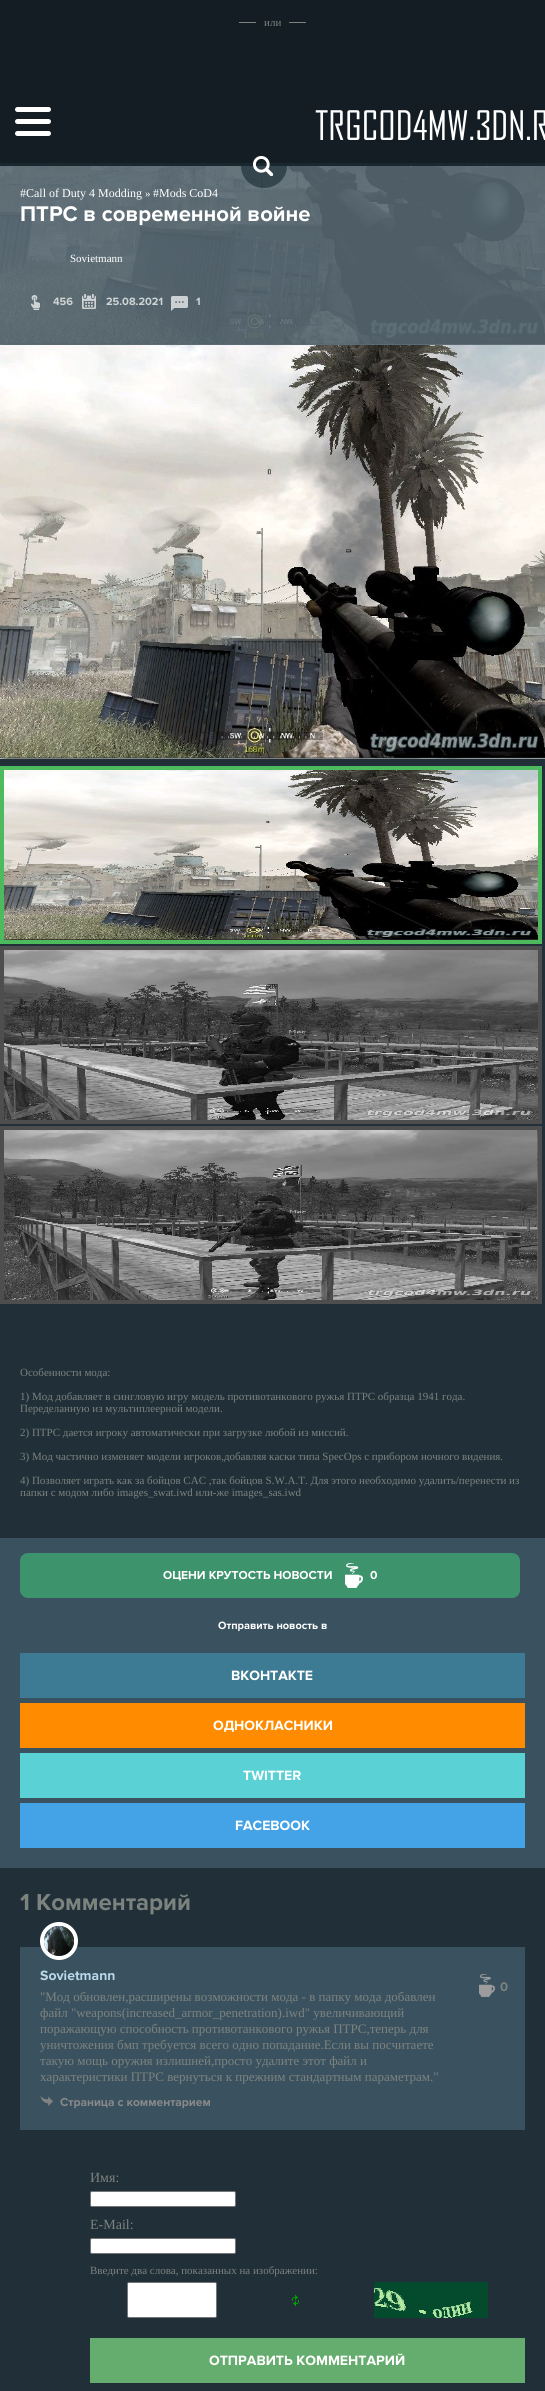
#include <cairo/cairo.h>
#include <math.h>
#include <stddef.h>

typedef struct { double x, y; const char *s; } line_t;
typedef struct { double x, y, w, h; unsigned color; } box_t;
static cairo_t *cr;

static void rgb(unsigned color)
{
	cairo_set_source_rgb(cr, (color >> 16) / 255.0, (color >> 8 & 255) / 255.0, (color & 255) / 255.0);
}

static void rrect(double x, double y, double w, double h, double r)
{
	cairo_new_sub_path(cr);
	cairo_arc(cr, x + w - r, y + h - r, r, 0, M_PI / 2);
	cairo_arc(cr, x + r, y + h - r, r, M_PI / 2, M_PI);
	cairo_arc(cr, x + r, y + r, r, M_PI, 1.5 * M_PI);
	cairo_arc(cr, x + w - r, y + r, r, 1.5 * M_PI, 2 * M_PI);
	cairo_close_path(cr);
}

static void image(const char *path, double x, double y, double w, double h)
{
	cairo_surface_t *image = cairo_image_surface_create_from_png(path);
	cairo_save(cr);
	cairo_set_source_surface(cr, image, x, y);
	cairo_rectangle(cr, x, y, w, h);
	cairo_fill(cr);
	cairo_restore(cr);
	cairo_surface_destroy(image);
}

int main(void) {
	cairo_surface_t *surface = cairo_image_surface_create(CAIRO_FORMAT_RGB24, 545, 2391);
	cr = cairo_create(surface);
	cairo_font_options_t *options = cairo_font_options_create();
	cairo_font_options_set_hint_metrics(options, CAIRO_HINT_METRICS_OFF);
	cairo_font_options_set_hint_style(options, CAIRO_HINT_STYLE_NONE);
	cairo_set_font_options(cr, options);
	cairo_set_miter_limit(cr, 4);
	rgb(0x141d23);
	cairo_paint(cr);
	{
		static const box_t items[] = {
			{239, 22, 17, 1, 0x7c827e},
			{289, 22, 17, 1, 0x7c827e},
			{0, 163, 545, 3, 0x19282f},
		};
		for (size_t i = 0; i < sizeof items / sizeof *items; i++) {
			rgb(items[i].color);
			cairo_rectangle(cr, items[i].x, items[i].y, items[i].w, items[i].h);
			cairo_fill(cr);
		}
	}
	rgb(0xffffff);
	rrect(15, 107, 36, 5, 2.5);
	cairo_fill(cr);
	rrect(15, 119, 36, 5, 2.5);
	cairo_fill(cr);
	rrect(15, 131, 36, 5, 2.5);
	cairo_fill(cr);
	rgb(0x576872);
	cairo_rectangle(cr, 0, 166, 545, 179);
	cairo_fill(cr);
	image("img/2.png", 0, 166, 545, 179);
	image("img/1.png", 241, 156, 46, 32);
	image("img/3.png", 31, 295, 9, 15);
	image("img/4.png", 82, 294, 14, 15);
	image("img/5.png", 171, 296, 17, 15);
	rgb(0x202f38);
	cairo_rectangle(cr, 0, 759, 545, 1632);
	cairo_fill(cr);
	image("img/6.png", 0, 345, 545, 414);
	cairo_rectangle(cr, 2, 768, 538, 174);
	rgb(0x4dba5d);
	cairo_set_line_width(cr, 4);
	cairo_stroke(cr);
	image("img/7.png", 4, 770, 534, 170);
	cairo_rectangle(cr, 2, 948, 538, 174);
	rgb(0x4e4e4e);
	cairo_stroke(cr);
	image("img/8.png", 4, 950, 534, 170);
	cairo_rectangle(cr, 2, 1128, 538, 174);
	cairo_stroke(cr);
	image("img/9.png", 4, 1130, 534, 170);
	rgb(0x3a5260);
	cairo_rectangle(cr, 0, 1538, 545, 330);
	cairo_fill(cr);
	rgb(0x3d936c);
	rrect(20, 1553, 500, 45, 8);
	cairo_fill(cr);
	image("img/10.png", 345, 1563, 18, 25);
	{
		static const box_t items[] = {
			{20, 1653, 505, 45, 0x3d7a93},
			{20, 1703, 505, 45, 0xff8c00},
			{20, 1753, 505, 45, 0x59d1d5},
			{20, 1803, 505, 45, 0x43a3e6},
			{20, 1947, 505, 183, 0x3a5260},
		};
		for (size_t i = 0; i < sizeof items / sizeof *items; i++) {
			rgb(items[i].color);
			cairo_rectangle(cr, items[i].x, items[i].y, items[i].w, items[i].h);
			cairo_fill(cr);
		}
	}
	cairo_arc(cr, 59, 1941, 17, 0, 2 * M_PI);
	rgb(0xffffff);
	cairo_stroke(cr);
	image("img/11.png", 44, 1926, 30, 30);
	image("img/12.png", 40, 2096, 13, 10);
	image("img/13.png", 479, 1974, 16, 23);
	rrect(90.5, 2191.5, 145, 15, 1.5);
	cairo_fill_preserve(cr);
	rgb(0x767676);
	cairo_set_line_width(cr, 1);
	cairo_stroke(cr);
	rgb(0xffffff);
	rrect(90.5, 2238.5, 145, 15, 1.5);
	cairo_fill_preserve(cr);
	rgb(0x767676);
	cairo_stroke(cr);
	rgb(0xffffff);
	rrect(127.5, 2282.5, 89, 35, 1.5);
	cairo_fill_preserve(cr);
	rgb(0x767676);
	cairo_stroke(cr);
	image("img/14.png", 292, 2295, 7, 11);
	image("img/15.png", 374, 2282, 114, 36);
	rgb(0x65ad6e);
	cairo_rectangle(cr, 90, 2338, 435, 45);
	cairo_fill(cr);
	cairo_select_font_face(cr, "Liberation Serif", CAIRO_FONT_SLANT_NORMAL, CAIRO_FONT_WEIGHT_NORMAL);
	cairo_set_font_size(cr, 11);
	rgb(0x7c827e);
	cairo_move_to(cr, 264, 26);
	cairo_show_text(cr, "или");
	cairo_select_font_face(cr, "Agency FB", CAIRO_FONT_SLANT_NORMAL, CAIRO_FONT_WEIGHT_NORMAL);
	cairo_set_font_size(cr, 39);
	rgb(0xffffff);
	cairo_move_to(cr, 315, 140);
	cairo_show_text(cr, "TRGCOD4MW.3DN.R");
	cairo_select_font_face(cr, "Liberation Serif", CAIRO_FONT_SLANT_NORMAL, CAIRO_FONT_WEIGHT_NORMAL);
	cairo_set_font_size(cr, 12);
	cairo_move_to(cr, 20, 197);
	cairo_show_text(cr, "#Call of Duty 4 Modding");
	cairo_set_font_size(cr, 11);
	cairo_move_to(cr, 145, 197);
	cairo_show_text(cr, "»");
	cairo_set_font_size(cr, 12);
	cairo_move_to(cr, 153, 197);
	cairo_show_text(cr, "#Mods CoD4");
	cairo_select_font_face(cr, "Proxima Nova", CAIRO_FONT_SLANT_NORMAL, CAIRO_FONT_WEIGHT_BOLD);
	cairo_set_font_size(cr, 22);
	cairo_move_to(cr, 20, 221);
	cairo_show_text(cr, "ПТРС в современной войне");
	cairo_select_font_face(cr, "Liberation Serif", CAIRO_FONT_SLANT_NORMAL, CAIRO_FONT_WEIGHT_NORMAL);
	cairo_set_font_size(cr, 11);
	cairo_move_to(cr, 70, 262);
	cairo_show_text(cr, "Sovietmann");
	cairo_select_font_face(cr, "Proxima Nova", CAIRO_FONT_SLANT_NORMAL, CAIRO_FONT_WEIGHT_BOLD);
	rgb(0xced3d4);
	{
		static const line_t items[] = {
			{53, 305, "456"},
			{106, 305, "25.08.2021"},
			{196, 305, "1"},
		};
		for (size_t i = 0; i < sizeof items / sizeof *items; i++) {
			cairo_move_to(cr, items[i].x, items[i].y);
			cairo_show_text(cr, items[i].s);
		}
	}
	cairo_select_font_face(cr, "Liberation Serif", CAIRO_FONT_SLANT_NORMAL, CAIRO_FONT_WEIGHT_NORMAL);
	rgb(0x7c827e);
	{
		static const line_t items[] = {
			{20, 1376, "Особенности мода:"},
			{20, 1400, "1) Мод добавляет в сингловую игру модель противотанкового ружья ПТРС образца 1941 года."},
			{20, 1412, "Переделанную из мультиплеерной модели."},
			{20, 1436, "2) ПТРС дается игроку автоматически при загрузке любой из миссий."},
			{20, 1460, "3) Мод частично изменяет модели игроков,добавляя каски типа SpecOps с прибором ночного видения."},
			{20, 1484, "4) Позволяет играть как за бойцов САС ,так бойцов S.W.A.T. Для этого необходимо удалить/перенести из"},
			{20, 1496, "папки с модом либо images_swat.iwd или-же images_sas.iwd"},
		};
		for (size_t i = 0; i < sizeof items / sizeof *items; i++) {
			cairo_move_to(cr, items[i].x, items[i].y);
			cairo_show_text(cr, items[i].s);
		}
	}
	cairo_select_font_face(cr, "Proxima Nova", CAIRO_FONT_SLANT_NORMAL, CAIRO_FONT_WEIGHT_BOLD);
	cairo_set_font_size(cr, 12);
	rgb(0xffffff);
	cairo_move_to(cr, 163, 1579);
	cairo_show_text(cr, "ОЦЕНИ КРУТОСТЬ НОВОСТИ");
	cairo_move_to(cr, 370, 1579);
	cairo_show_text(cr, "0");
	cairo_set_font_size(cr, 11);
	cairo_move_to(cr, 218, 1629);
	cairo_show_text(cr, "Отправить новость в");
	cairo_set_font_size(cr, 14);
	{
		static const line_t items[] = {
			{231, 1680, "ВКОНТАКТЕ"},
			{213, 1730, "ОДНОКЛАСНИКИ"},
			{243, 1780, "TWITTER"},
			{235, 1830, "FACEBOOK"},
		};
		for (size_t i = 0; i < sizeof items / sizeof *items; i++) {
			cairo_move_to(cr, items[i].x, items[i].y);
			cairo_show_text(cr, items[i].s);
		}
	}
	cairo_set_font_size(cr, 24);
	rgb(0x7c827e);
	cairo_move_to(cr, 20, 1910);
	cairo_show_text(cr, "1 Комментарий");
	cairo_set_font_size(cr, 14);
	rgb(0xbbd9ea);
	cairo_move_to(cr, 40, 1980);
	cairo_show_text(cr, "Sovietmann");
	cairo_select_font_face(cr, "Liberation Serif", CAIRO_FONT_SLANT_NORMAL, CAIRO_FONT_WEIGHT_NORMAL);
	cairo_set_font_size(cr, 13);
	rgb(0x7c827e);
	{
		static const line_t items[] = {
			{40, 2001, "\"Мод обновлен,расширены возможности мода - в папку мода добавлен"},
			{40, 2017, "файл \"weapons(increased_armor_penetration).iwd\" увеличивающий"},
			{40, 2033, "поражающую способность противотанкового ружья ПТРС,теперь для"},
			{40, 2049, "уничтожения бмп требуется всего одно попадание.Если вы посчитаете"},
			{40, 2065, "такую мощь оружия излишней,просто удалите этот файл и"},
			{40, 2081, "характеристики ПТРС вернуться к прежним стандартным параметрам.\""},
		};
		for (size_t i = 0; i < sizeof items / sizeof *items; i++) {
			cairo_move_to(cr, items[i].x, items[i].y);
			cairo_show_text(cr, items[i].s);
		}
	}
	cairo_select_font_face(cr, "Proxima Nova", CAIRO_FONT_SLANT_NORMAL, CAIRO_FONT_WEIGHT_BOLD);
	cairo_set_font_size(cr, 12);
	rgb(0x898989);
	cairo_move_to(cr, 60, 2106);
	cairo_show_text(cr, "Страница с комментарием");
	cairo_set_font_size(cr, 13);
	rgb(0x7c827e);
	cairo_move_to(cr, 500, 1991);
	cairo_show_text(cr, "0");
	cairo_select_font_face(cr, "Liberation Serif", CAIRO_FONT_SLANT_NORMAL, CAIRO_FONT_WEIGHT_NORMAL);
	cairo_set_font_size(cr, 14);
	cairo_move_to(cr, 90, 2182);
	cairo_show_text(cr, "Имя:");
	cairo_move_to(cr, 90, 2229);
	cairo_show_text(cr, "E-Mail:");
	cairo_set_font_size(cr, 11);
	cairo_move_to(cr, 90, 2274);
	cairo_show_text(cr, "Введите два слова, показанных на изображении:");
	cairo_select_font_face(cr, "Proxima Nova", CAIRO_FONT_SLANT_NORMAL, CAIRO_FONT_WEIGHT_BOLD);
	cairo_set_font_size(cr, 14);
	rgb(0xffffff);
	cairo_move_to(cr, 209, 2365);
	cairo_show_text(cr, "ОТПРАВИТЬ КОММЕНТАРИЙ");
	cairo_surface_write_to_png(surface, "page.png");
	cairo_font_options_destroy(options);
	cairo_destroy(cr);
	cairo_surface_destroy(surface);
	return 0;
}
